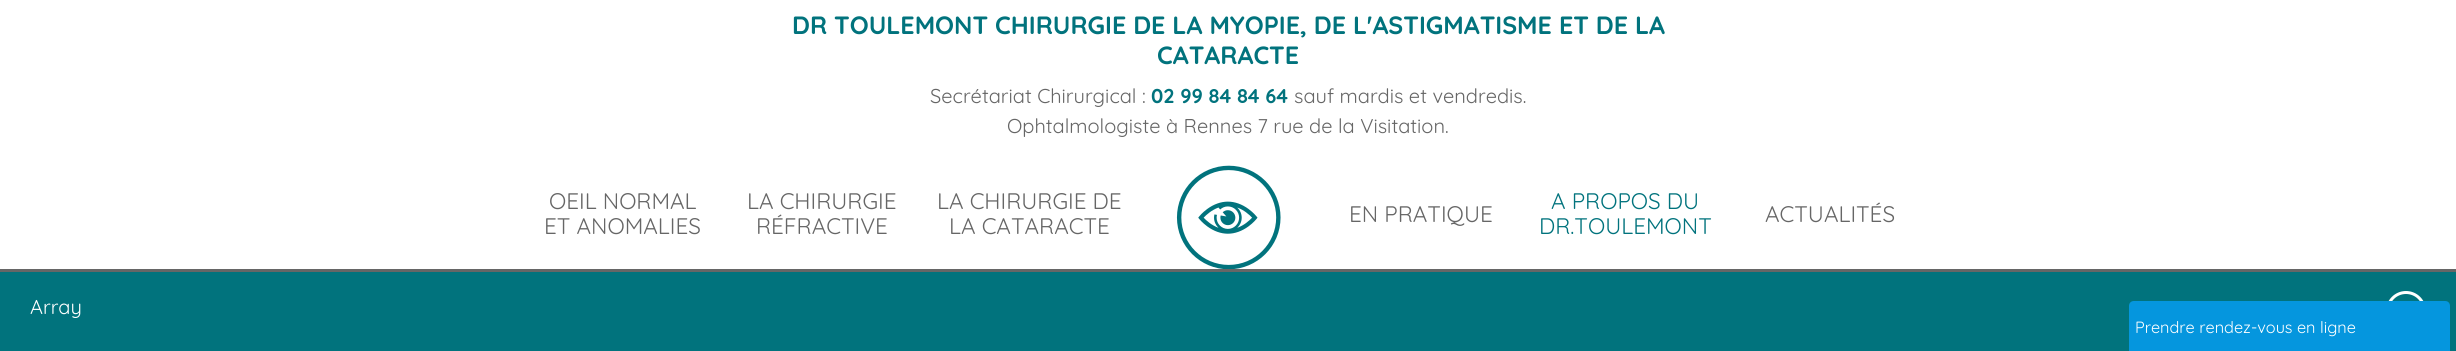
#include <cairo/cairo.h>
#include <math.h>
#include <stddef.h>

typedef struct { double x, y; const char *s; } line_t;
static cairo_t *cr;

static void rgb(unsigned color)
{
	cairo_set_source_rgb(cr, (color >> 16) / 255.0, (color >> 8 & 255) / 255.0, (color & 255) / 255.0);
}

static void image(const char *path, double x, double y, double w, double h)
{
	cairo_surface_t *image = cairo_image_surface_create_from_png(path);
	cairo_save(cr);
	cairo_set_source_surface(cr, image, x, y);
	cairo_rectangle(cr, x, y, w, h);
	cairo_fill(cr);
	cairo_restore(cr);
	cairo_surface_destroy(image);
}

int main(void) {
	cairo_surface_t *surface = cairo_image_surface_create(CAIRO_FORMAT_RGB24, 2456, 351);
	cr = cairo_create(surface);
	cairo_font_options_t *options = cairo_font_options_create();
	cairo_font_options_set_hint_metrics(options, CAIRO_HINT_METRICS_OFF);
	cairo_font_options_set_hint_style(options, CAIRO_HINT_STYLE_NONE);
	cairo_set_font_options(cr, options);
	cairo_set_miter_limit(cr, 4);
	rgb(0xffffff);
	cairo_paint(cr);
	image("img/1.png", 1176, 165, 105, 104);
	rgb(0x01737d);
	cairo_rectangle(cr, 0, 272, 2456, 79);
	cairo_fill(cr);
	rgb(0x666666);
	cairo_rectangle(cr, 0, 269, 2456, 3);
	cairo_fill(cr);
	cairo_arc(cr, 2406, 311, 18.5, 0, 2 * M_PI);
	rgb(0xffffff);
	cairo_set_line_width(cr, 3);
	cairo_stroke(cr);
	rgb(0x0596de);
	cairo_new_path(cr);
	cairo_move_to(cr, 2134, 301);
	cairo_line_to(cr, 2445, 301);
	cairo_curve_to(cr, 2448, 301, 2450, 303, 2450, 306);
	cairo_line_to(cr, 2450, 351);
	cairo_line_to(cr, 2129, 351);
	cairo_line_to(cr, 2129, 306);
	cairo_curve_to(cr, 2129, 303, 2131, 301, 2134, 301);
	cairo_close_path(cr);
	cairo_fill(cr);
	cairo_select_font_face(cr, "Quicksand", CAIRO_FONT_SLANT_NORMAL, CAIRO_FONT_WEIGHT_BOLD);
	cairo_set_font_size(cr, 25);
	rgb(0x01737d);
	cairo_move_to(cr, 792, 34);
	cairo_show_text(cr, "DR TOULEMONT CHIRURGIE DE LA MYOPIE, DE L'ASTIGMATISME ET DE LA");
	cairo_move_to(cr, 1157, 64);
	cairo_show_text(cr, "CATARACTE");
	cairo_select_font_face(cr, "Quicksand", CAIRO_FONT_SLANT_NORMAL, CAIRO_FONT_WEIGHT_NORMAL);
	cairo_set_font_size(cr, 20);
	rgb(0x666666);
	cairo_move_to(cr, 930, 103);
	cairo_show_text(cr, "Secrétariat Chirurgical :");
	cairo_select_font_face(cr, "Quicksand", CAIRO_FONT_SLANT_NORMAL, CAIRO_FONT_WEIGHT_BOLD);
	rgb(0x01737d);
	cairo_move_to(cr, 1151, 103);
	cairo_show_text(cr, "02 99 84 84 64");
	cairo_select_font_face(cr, "Quicksand", CAIRO_FONT_SLANT_NORMAL, CAIRO_FONT_WEIGHT_NORMAL);
	rgb(0x666666);
	cairo_move_to(cr, 1294, 103);
	cairo_show_text(cr, "sauf mardis et vendredis.");
	cairo_move_to(cr, 1007, 133);
	cairo_show_text(cr, "Ophtalmologiste à Rennes 7 rue de la Visitation.");
	cairo_set_font_size(cr, 22.5);
	{
		static const line_t items[] = {
			{549, 209, "OEIL NORMAL"},
			{544, 234, "ET ANOMALIES"},
			{747, 209, "LA CHIRURGIE"},
			{756, 234, "RÉFRACTIVE"},
			{937, 209, "LA CHIRURGIE DE"},
			{949, 234, "LA CATARACTE"},
			{1349, 222, "EN PRATIQUE"},
		};
		for (size_t i = 0; i < sizeof items / sizeof *items; i++) {
			cairo_move_to(cr, items[i].x, items[i].y);
			cairo_show_text(cr, items[i].s);
		}
	}
	rgb(0x01737d);
	cairo_move_to(cr, 1551, 209);
	cairo_show_text(cr, "A PROPOS DU");
	cairo_move_to(cr, 1539, 234);
	cairo_show_text(cr, "DR.TOULEMONT");
	rgb(0x666666);
	cairo_move_to(cr, 1765, 222);
	cairo_show_text(cr, "ACTUALITÉS");
	cairo_set_font_size(cr, 20);
	rgb(0xffffff);
	cairo_move_to(cr, 30, 314);
	cairo_show_text(cr, "Array");
	cairo_set_font_size(cr, 16.25);
	cairo_move_to(cr, 2135, 333);
	cairo_show_text(cr, "Prendre rendez-vous en ligne");
	cairo_surface_write_to_png(surface, "page.png");
	cairo_font_options_destroy(options);
	cairo_destroy(cr);
	cairo_surface_destroy(surface);
	return 0;
}
